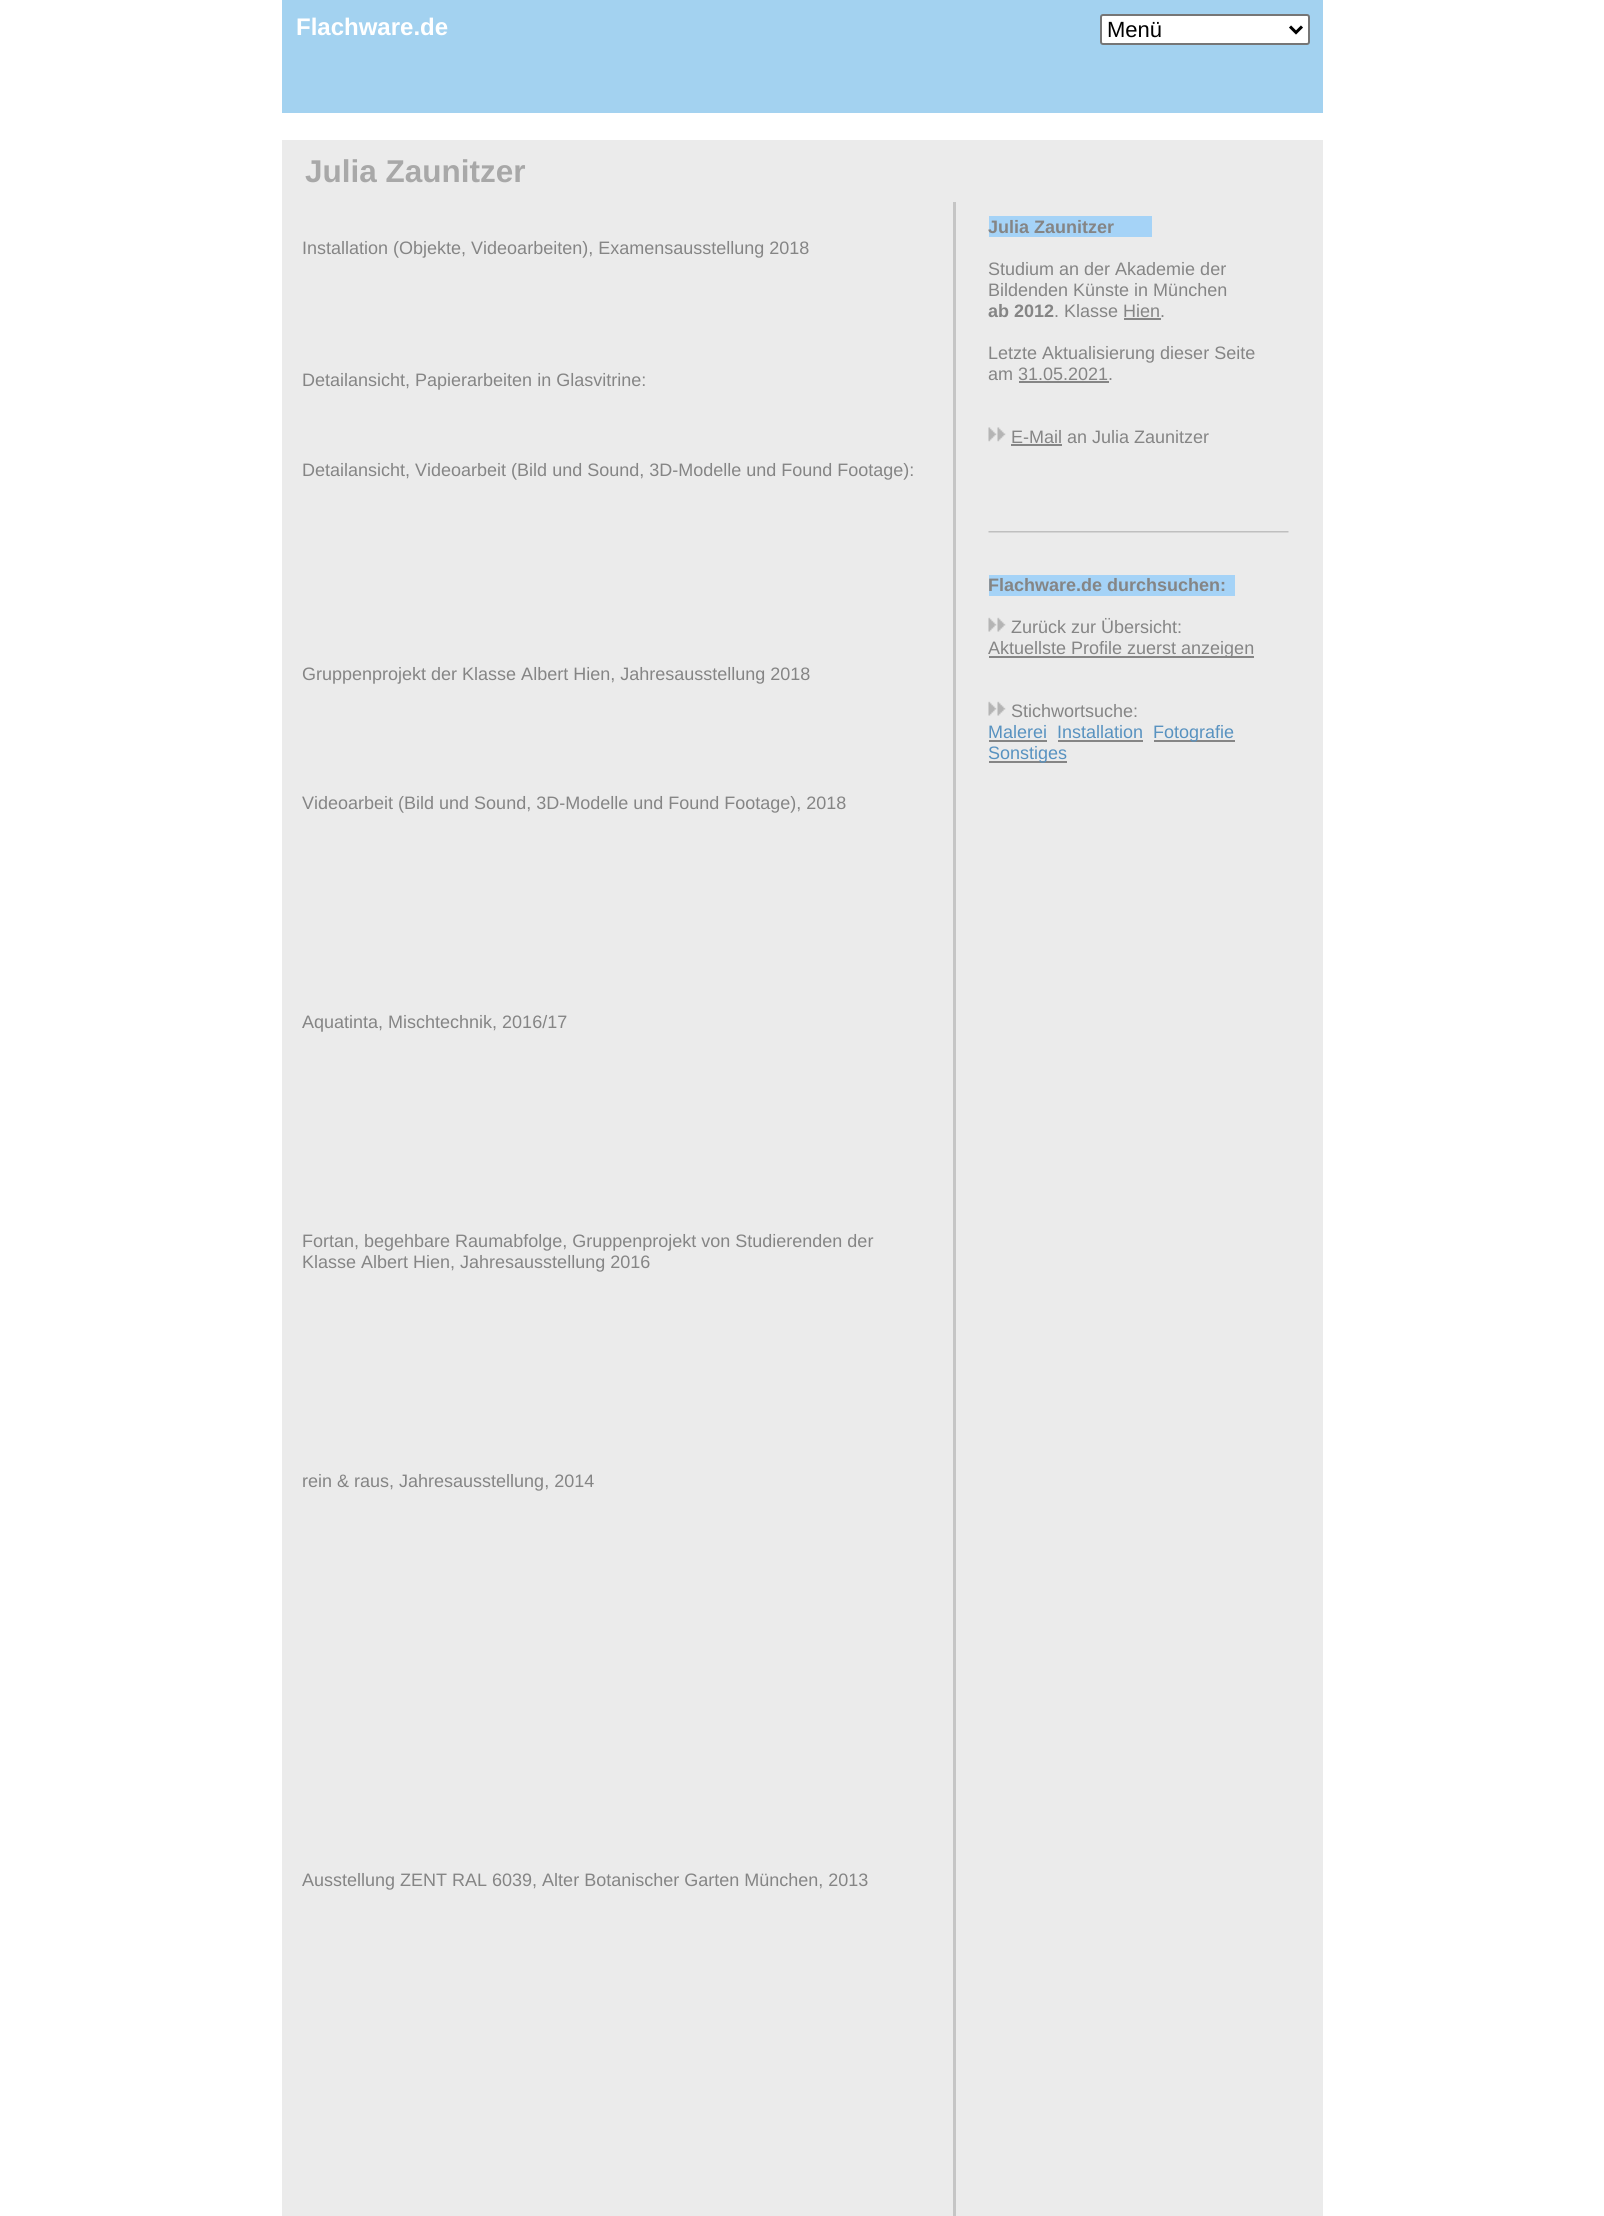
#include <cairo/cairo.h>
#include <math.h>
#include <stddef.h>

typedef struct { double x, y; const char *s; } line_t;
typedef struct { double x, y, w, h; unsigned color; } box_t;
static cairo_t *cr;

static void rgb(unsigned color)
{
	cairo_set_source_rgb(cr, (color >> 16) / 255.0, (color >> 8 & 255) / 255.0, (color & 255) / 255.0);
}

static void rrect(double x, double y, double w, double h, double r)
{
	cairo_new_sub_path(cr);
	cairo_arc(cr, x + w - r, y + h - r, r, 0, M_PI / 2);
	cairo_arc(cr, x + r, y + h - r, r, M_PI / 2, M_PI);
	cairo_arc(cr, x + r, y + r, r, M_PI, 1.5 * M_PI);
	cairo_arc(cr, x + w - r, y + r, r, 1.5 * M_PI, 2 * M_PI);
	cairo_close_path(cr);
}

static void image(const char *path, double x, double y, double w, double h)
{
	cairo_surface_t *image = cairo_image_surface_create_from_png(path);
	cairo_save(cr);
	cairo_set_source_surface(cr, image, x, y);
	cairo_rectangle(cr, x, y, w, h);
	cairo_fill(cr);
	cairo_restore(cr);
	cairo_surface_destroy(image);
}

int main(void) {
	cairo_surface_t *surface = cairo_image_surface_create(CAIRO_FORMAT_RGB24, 1604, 2216);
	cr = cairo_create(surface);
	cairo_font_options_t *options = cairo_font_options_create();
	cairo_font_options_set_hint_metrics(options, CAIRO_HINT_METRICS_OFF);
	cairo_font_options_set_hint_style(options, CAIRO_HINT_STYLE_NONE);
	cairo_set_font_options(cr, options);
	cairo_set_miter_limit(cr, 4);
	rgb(0xffffff);
	cairo_paint(cr);
	rgb(0xa3d2f0);
	cairo_rectangle(cr, 282, 0, 1041, 113);
	cairo_fill(cr);
	rgb(0xffffff);
	rrect(1101, 15, 208, 29, 2);
	cairo_fill_preserve(cr);
	rgb(0x767676);
	cairo_stroke(cr);
	cairo_new_path(cr);
	cairo_move_to(cr, 1290, 26.5);
	cairo_line_to(cr, 1296, 32.5);
	cairo_line_to(cr, 1302, 26.5);
	rgb(0x000000);
	cairo_set_line_width(cr, 3);
	cairo_stroke(cr);
	{
		static const box_t items[] = {
			{282, 140, 1041, 2076, 0xebebeb},
			{953, 202, 3, 2014, 0xc5c5c5},
			{989, 216, 163, 21, 0xa5d3f7},
			{1124, 318, 37, 2, 0x858585},
			{1019, 381, 90, 2, 0x858585},
		};
		for (size_t i = 0; i < sizeof items / sizeof *items; i++) {
			rgb(items[i].color);
			cairo_rectangle(cr, items[i].x, items[i].y, items[i].w, items[i].h);
			cairo_fill(cr);
		}
	}
	image("img/1.png", 988, 427, 18, 15);
	cairo_rectangle(cr, 1011, 444, 51, 2);
	cairo_fill(cr);
	image("img/2.png", 988, 531, 301, 2);
	rgb(0xa5d3f7);
	cairo_rectangle(cr, 989, 575, 246, 21);
	cairo_fill(cr);
	image("img/3.png", 988, 617, 18, 15);
	rgb(0x858585);
	cairo_rectangle(cr, 989, 656, 265, 2);
	cairo_fill(cr);
	image("img/3.png", 988, 701, 18, 15);
	{
		static const box_t items[] = {
			{989, 740, 58, 2, 0x858585},
			{1058, 740, 85, 2, 0x858585},
			{1154, 740, 81, 2, 0x858585},
			{989, 761, 78, 2, 0x858585},
		};
		for (size_t i = 0; i < sizeof items / sizeof *items; i++) {
			rgb(items[i].color);
			cairo_rectangle(cr, items[i].x, items[i].y, items[i].w, items[i].h);
			cairo_fill(cr);
		}
	}
	cairo_select_font_face(cr, "Liberation Sans", CAIRO_FONT_SLANT_NORMAL, CAIRO_FONT_WEIGHT_BOLD);
	cairo_set_font_size(cr, 24);
	rgb(0xffffff);
	cairo_move_to(cr, 296, 35);
	cairo_show_text(cr, "Flachware.de");
	cairo_select_font_face(cr, "Liberation Sans", CAIRO_FONT_SLANT_NORMAL, CAIRO_FONT_WEIGHT_NORMAL);
	cairo_set_font_size(cr, 22);
	rgb(0x000000);
	cairo_move_to(cr, 1107, 37);
	cairo_show_text(cr, "Menü");
	cairo_select_font_face(cr, "Liberation Sans", CAIRO_FONT_SLANT_NORMAL, CAIRO_FONT_WEIGHT_BOLD);
	cairo_set_font_size(cr, 31.5);
	rgb(0xa8a8a8);
	cairo_move_to(cr, 305, 182);
	cairo_show_text(cr, "Julia Zaunitzer");
	cairo_select_font_face(cr, "Liberation Sans", CAIRO_FONT_SLANT_NORMAL, CAIRO_FONT_WEIGHT_NORMAL);
	cairo_set_font_size(cr, 18);
	rgb(0x858585);
	{
		static const line_t items[] = {
			{302, 254, "Installation (Objekte, Videoarbeiten), Examensausstellung 2018"},
			{302, 386, "Detailansicht, Papierarbeiten in Glasvitrine:"},
			{302, 476, "Detailansicht, Videoarbeit (Bild und Sound, 3D-Modelle und Found Footage):"},
			{302, 680, "Gruppenprojekt der Klasse Albert Hien, Jahresausstellung 2018"},
			{302, 809, "Videoarbeit (Bild und Sound, 3D-Modelle und Found Footage), 2018"},
			{302, 1028, "Aquatinta, Mischtechnik, 2016/17"},
			{302, 1247, "Fortan, begehbare Raumabfolge, Gruppenprojekt von Studierenden der"},
			{302, 1268, "Klasse Albert Hien, Jahresausstellung 2016"},
			{302, 1487, "rein & raus, Jahresausstellung, 2014"},
			{302, 1886, "Ausstellung ZENT RAL 6039, Alter Botanischer Garten München, 2013"},
		};
		for (size_t i = 0; i < sizeof items / sizeof *items; i++) {
			cairo_move_to(cr, items[i].x, items[i].y);
			cairo_show_text(cr, items[i].s);
		}
	}
	cairo_select_font_face(cr, "Liberation Sans", CAIRO_FONT_SLANT_NORMAL, CAIRO_FONT_WEIGHT_BOLD);
	cairo_move_to(cr, 988, 233);
	cairo_show_text(cr, "Julia Zaunitzer");
	cairo_select_font_face(cr, "Liberation Sans", CAIRO_FONT_SLANT_NORMAL, CAIRO_FONT_WEIGHT_NORMAL);
	cairo_move_to(cr, 988, 275);
	cairo_show_text(cr, "Studium an der Akademie der");
	cairo_move_to(cr, 988, 296);
	cairo_show_text(cr, "Bildenden Künste in München");
	cairo_select_font_face(cr, "Liberation Sans", CAIRO_FONT_SLANT_NORMAL, CAIRO_FONT_WEIGHT_BOLD);
	cairo_move_to(cr, 988, 317);
	cairo_show_text(cr, "ab 2012");
	cairo_select_font_face(cr, "Liberation Sans", CAIRO_FONT_SLANT_NORMAL, CAIRO_FONT_WEIGHT_NORMAL);
	{
		static const line_t items[] = {
			{1054, 317, ". Klasse Hien."},
			{988, 359, "Letzte Aktualisierung dieser Seite"},
			{988, 380, "am 31.05.2021."},
			{1011, 443, "E-Mail an Julia Zaunitzer"},
		};
		for (size_t i = 0; i < sizeof items / sizeof *items; i++) {
			cairo_move_to(cr, items[i].x, items[i].y);
			cairo_show_text(cr, items[i].s);
		}
	}
	cairo_select_font_face(cr, "Liberation Sans", CAIRO_FONT_SLANT_NORMAL, CAIRO_FONT_WEIGHT_BOLD);
	cairo_move_to(cr, 988, 591);
	cairo_show_text(cr, "Flachware.de durchsuchen:");
	cairo_select_font_face(cr, "Liberation Sans", CAIRO_FONT_SLANT_NORMAL, CAIRO_FONT_WEIGHT_NORMAL);
	{
		static const line_t items[] = {
			{1011, 633, "Zurück zur Übersicht:"},
			{988, 654, "Aktuellste Profile zuerst anzeigen"},
			{1011, 717, "Stichwortsuche:"},
		};
		for (size_t i = 0; i < sizeof items / sizeof *items; i++) {
			cairo_move_to(cr, items[i].x, items[i].y);
			cairo_show_text(cr, items[i].s);
		}
	}
	rgb(0x5892c0);
	{
		static const line_t items[] = {
			{988, 738, "Malerei"},
			{1057, 738, "Installation"},
			{1153, 738, "Fotografie"},
			{988, 759, "Sonstiges"},
		};
		for (size_t i = 0; i < sizeof items / sizeof *items; i++) {
			cairo_move_to(cr, items[i].x, items[i].y);
			cairo_show_text(cr, items[i].s);
		}
	}
	cairo_surface_write_to_png(surface, "page.png");
	cairo_font_options_destroy(options);
	cairo_destroy(cr);
	cairo_surface_destroy(surface);
	return 0;
}
